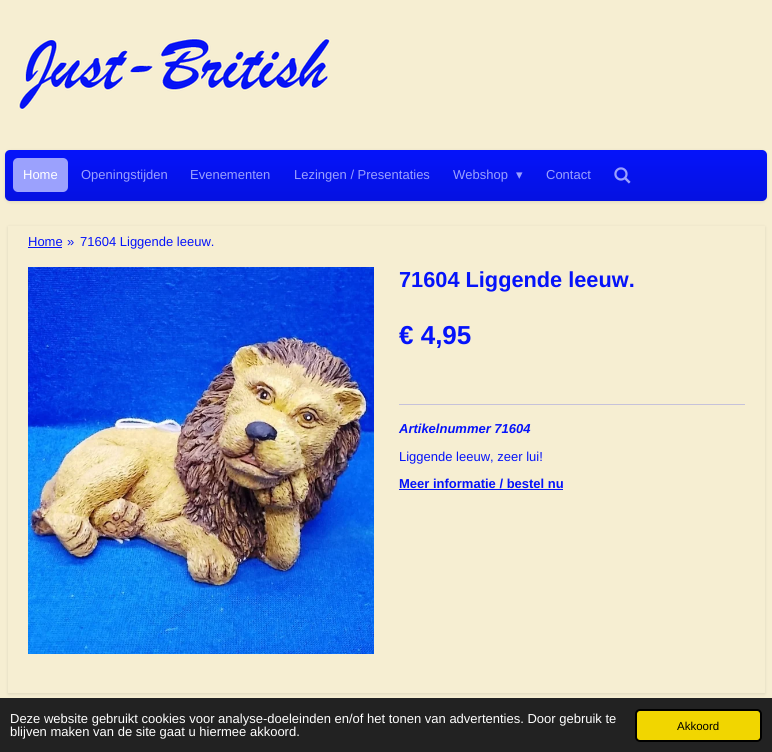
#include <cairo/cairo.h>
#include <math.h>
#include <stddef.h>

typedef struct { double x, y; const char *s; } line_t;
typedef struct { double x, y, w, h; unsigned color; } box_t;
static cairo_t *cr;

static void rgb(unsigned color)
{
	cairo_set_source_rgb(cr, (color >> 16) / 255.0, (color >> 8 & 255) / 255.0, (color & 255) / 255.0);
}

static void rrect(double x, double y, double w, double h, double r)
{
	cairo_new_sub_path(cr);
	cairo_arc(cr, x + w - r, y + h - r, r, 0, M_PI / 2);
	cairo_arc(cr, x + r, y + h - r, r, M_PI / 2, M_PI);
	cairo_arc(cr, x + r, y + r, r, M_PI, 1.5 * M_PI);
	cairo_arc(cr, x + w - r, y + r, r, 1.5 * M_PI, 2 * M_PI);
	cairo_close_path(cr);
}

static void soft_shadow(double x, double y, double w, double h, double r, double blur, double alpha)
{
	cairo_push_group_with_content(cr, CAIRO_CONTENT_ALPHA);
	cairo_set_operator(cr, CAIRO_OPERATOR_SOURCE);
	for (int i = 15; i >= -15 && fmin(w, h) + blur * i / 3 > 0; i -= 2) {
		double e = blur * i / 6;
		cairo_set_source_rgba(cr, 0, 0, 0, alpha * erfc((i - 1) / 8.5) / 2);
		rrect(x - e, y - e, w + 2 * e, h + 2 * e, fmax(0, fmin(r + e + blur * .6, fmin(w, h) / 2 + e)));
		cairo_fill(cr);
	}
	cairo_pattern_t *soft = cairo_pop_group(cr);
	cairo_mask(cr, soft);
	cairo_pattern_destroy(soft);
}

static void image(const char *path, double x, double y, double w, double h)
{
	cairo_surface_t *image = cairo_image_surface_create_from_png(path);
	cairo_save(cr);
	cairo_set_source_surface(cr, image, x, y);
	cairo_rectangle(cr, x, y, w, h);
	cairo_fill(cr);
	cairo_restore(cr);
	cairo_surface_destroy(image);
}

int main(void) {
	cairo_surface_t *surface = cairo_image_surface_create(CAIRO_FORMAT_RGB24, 772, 752);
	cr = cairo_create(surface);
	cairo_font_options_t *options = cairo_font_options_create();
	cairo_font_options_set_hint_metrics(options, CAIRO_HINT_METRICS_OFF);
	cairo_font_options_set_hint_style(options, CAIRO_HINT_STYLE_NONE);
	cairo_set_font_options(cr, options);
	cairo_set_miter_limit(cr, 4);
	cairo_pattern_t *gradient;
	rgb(0xf6eed2);
	cairo_paint(cr);
	image("img/1.png", 18, 37, 313, 73);
	rgb(0x000000);
	soft_shadow(5, 151, 762, 51, 5, 1.5, 0.1);
	gradient = cairo_pattern_create_linear(386, 201, 386, 150);
	cairo_pattern_add_color_stop_rgba(gradient, 0, 0.02, 0.067, 0.882, 1);
	cairo_pattern_add_color_stop_rgba(gradient, 1, 0.02, 0.075, 0.98, 1);
	cairo_set_source(cr, gradient);
	cairo_pattern_destroy(gradient);
	rrect(5, 150, 762, 51, 5);
	cairo_fill(cr);
	rgb(0x9ba1fd);
	rrect(13, 158, 55, 34, 5);
	cairo_fill(cr);
	image("img/2.png", 614, 167, 17, 17);
	cairo_save(cr);
	cairo_set_fill_rule(cr, CAIRO_FILL_RULE_EVEN_ODD);
	cairo_new_path(cr);
	cairo_move_to(cr, 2, 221);
	cairo_line_to(cr, 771, 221);
	cairo_line_to(cr, 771, 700);
	cairo_line_to(cr, 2, 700);
	cairo_close_path(cr);
	cairo_move_to(cr, 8, 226);
	cairo_line_to(cr, 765, 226);
	cairo_line_to(cr, 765, 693);
	cairo_line_to(cr, 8, 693);
	cairo_close_path(cr);
	cairo_clip(cr);
	rgb(0x000000);
	soft_shadow(8, 227, 757, 467, 0, 1.5, 0.1);
	cairo_restore(cr);
	rgb(0x0513fa);
	cairo_rectangle(cr, 28, 247, 34, 1);
	cairo_fill(cr);
	image("img/3.png", 28, 267, 346, 387);
	{
		static const box_t items[] = {
			{399, 404, 346, 1, 0xc6c2da},
			{399, 489, 164, 1, 0x0513fa},
			{0, 698, 772, 54, 0x222222},
		};
		for (size_t i = 0; i < sizeof items / sizeof *items; i++) {
			rgb(items[i].color);
			cairo_rectangle(cr, items[i].x, items[i].y, items[i].w, items[i].h);
			cairo_fill(cr);
		}
	}
	rgb(0xf1d600);
	rrect(636, 710, 125, 31, 4);
	cairo_fill_preserve(cr);
	rgb(0x000000);
	cairo_stroke(cr);
	cairo_select_font_face(cr, "Liberation Sans", CAIRO_FONT_SLANT_NORMAL, CAIRO_FONT_WEIGHT_NORMAL);
	cairo_set_font_size(cr, 13);
	rgb(0xffffff);
	cairo_move_to(cr, 23, 179);
	cairo_show_text(cr, "Home");
	rgb(0x9ba1fd);
	{
		static const line_t items[] = {
			{81, 179, "Openingstijden"},
			{190, 179, "Evenementen"},
			{294, 179, "Lezingen / Presentaties"},
			{453, 179, "Webshop"},
		};
		for (size_t i = 0; i < sizeof items / sizeof *items; i++) {
			cairo_move_to(cr, items[i].x, items[i].y);
			cairo_show_text(cr, items[i].s);
		}
	}
	cairo_select_font_face(cr, "DejaVu Sans", CAIRO_FONT_SLANT_NORMAL, CAIRO_FONT_WEIGHT_NORMAL);
	cairo_move_to(cr, 516, 179);
	cairo_show_text(cr, "▾");
	cairo_select_font_face(cr, "Liberation Sans", CAIRO_FONT_SLANT_NORMAL, CAIRO_FONT_WEIGHT_NORMAL);
	cairo_move_to(cr, 546, 179);
	cairo_show_text(cr, "Contact");
	rgb(0x0513fa);
	{
		static const line_t items[] = {
			{28, 246, "Home"},
			{67, 246, "»"},
			{80, 246, "71604 Liggende leeuw."},
		};
		for (size_t i = 0; i < sizeof items / sizeof *items; i++) {
			cairo_move_to(cr, items[i].x, items[i].y);
			cairo_show_text(cr, items[i].s);
		}
	}
	cairo_select_font_face(cr, "Liberation Sans", CAIRO_FONT_SLANT_NORMAL, CAIRO_FONT_WEIGHT_BOLD);
	cairo_set_font_size(cr, 21.75);
	cairo_move_to(cr, 399, 287);
	cairo_show_text(cr, "71604 Liggende leeuw.");
	cairo_set_font_size(cr, 26);
	cairo_move_to(cr, 399, 344);
	cairo_show_text(cr, "€ 4,95");
	cairo_select_font_face(cr, "Liberation Sans", CAIRO_FONT_SLANT_ITALIC, CAIRO_FONT_WEIGHT_BOLD);
	cairo_set_font_size(cr, 13);
	cairo_move_to(cr, 399, 433);
	cairo_show_text(cr, "Artikelnummer 71604");
	cairo_select_font_face(cr, "Liberation Sans", CAIRO_FONT_SLANT_NORMAL, CAIRO_FONT_WEIGHT_NORMAL);
	cairo_move_to(cr, 399, 461);
	cairo_show_text(cr, "Liggende leeuw, zeer lui!");
	cairo_select_font_face(cr, "Liberation Sans", CAIRO_FONT_SLANT_NORMAL, CAIRO_FONT_WEIGHT_BOLD);
	cairo_move_to(cr, 399, 488);
	cairo_show_text(cr, "Meer informatie / bestel nu");
	cairo_select_font_face(cr, "Liberation Sans", CAIRO_FONT_SLANT_NORMAL, CAIRO_FONT_WEIGHT_NORMAL);
	rgb(0xffffff);
	cairo_move_to(cr, 10, 723);
	cairo_show_text(cr, "Deze website gebruikt cookies voor analyse-doeleinden en/of het tonen van advertenties. Door gebruik te");
	cairo_move_to(cr, 10, 736);
	cairo_show_text(cr, "blijven maken van de site gaat u hiermee akkoord.");
	cairo_set_font_size(cr, 11.5);
	rgb(0x000000);
	cairo_move_to(cr, 677, 730);
	cairo_show_text(cr, "Akkoord");
	cairo_surface_write_to_png(surface, "page.png");
	cairo_font_options_destroy(options);
	cairo_destroy(cr);
	cairo_surface_destroy(surface);
	return 0;
}
